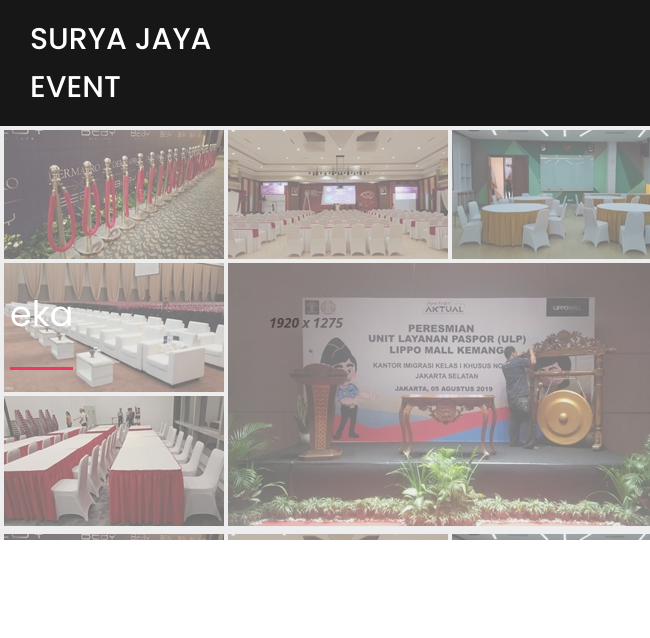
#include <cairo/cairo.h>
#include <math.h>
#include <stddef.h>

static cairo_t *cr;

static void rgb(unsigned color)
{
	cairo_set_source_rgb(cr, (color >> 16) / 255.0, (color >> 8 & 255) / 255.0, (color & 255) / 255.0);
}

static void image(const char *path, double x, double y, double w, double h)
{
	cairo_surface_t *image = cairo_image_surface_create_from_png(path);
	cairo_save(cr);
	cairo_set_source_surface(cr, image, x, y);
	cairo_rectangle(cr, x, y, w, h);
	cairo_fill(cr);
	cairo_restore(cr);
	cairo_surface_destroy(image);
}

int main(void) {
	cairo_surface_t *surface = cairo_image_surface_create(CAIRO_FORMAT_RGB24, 650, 638);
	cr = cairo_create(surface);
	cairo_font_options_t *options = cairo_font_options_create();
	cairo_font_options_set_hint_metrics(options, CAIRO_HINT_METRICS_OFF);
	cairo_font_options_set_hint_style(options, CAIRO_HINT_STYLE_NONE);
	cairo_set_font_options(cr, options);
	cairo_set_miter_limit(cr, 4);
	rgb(0xffffff);
	cairo_paint(cr);
	rgb(0x171717);
	cairo_rectangle(cr, 0, 0, 650, 126);
	cairo_fill(cr);
	image("img/1.png", 0, 126, 650, 414);
	image("img/2.png", 0, 126, 650, 414);
	rgb(0xea3a60);
	cairo_rectangle(cr, 10, 367, 63, 3);
	cairo_fill(cr);
	cairo_select_font_face(cr, "Poppins Medium", CAIRO_FONT_SLANT_NORMAL, CAIRO_FONT_WEIGHT_NORMAL);
	cairo_set_font_size(cr, 30);
	rgb(0xffffff);
	cairo_move_to(cr, 30, 49);
	cairo_show_text(cr, "SURYA JAYA");
	cairo_move_to(cr, 30, 97);
	cairo_show_text(cr, "EVENT");
	cairo_select_font_face(cr, "Poppins", CAIRO_FONT_SLANT_NORMAL, CAIRO_FONT_WEIGHT_NORMAL);
	cairo_set_font_size(cr, 35);
	cairo_move_to(cr, 10, 326);
	cairo_show_text(cr, "eka");
	cairo_surface_write_to_png(surface, "page.png");
	cairo_font_options_destroy(options);
	cairo_destroy(cr);
	cairo_surface_destroy(surface);
	return 0;
}
